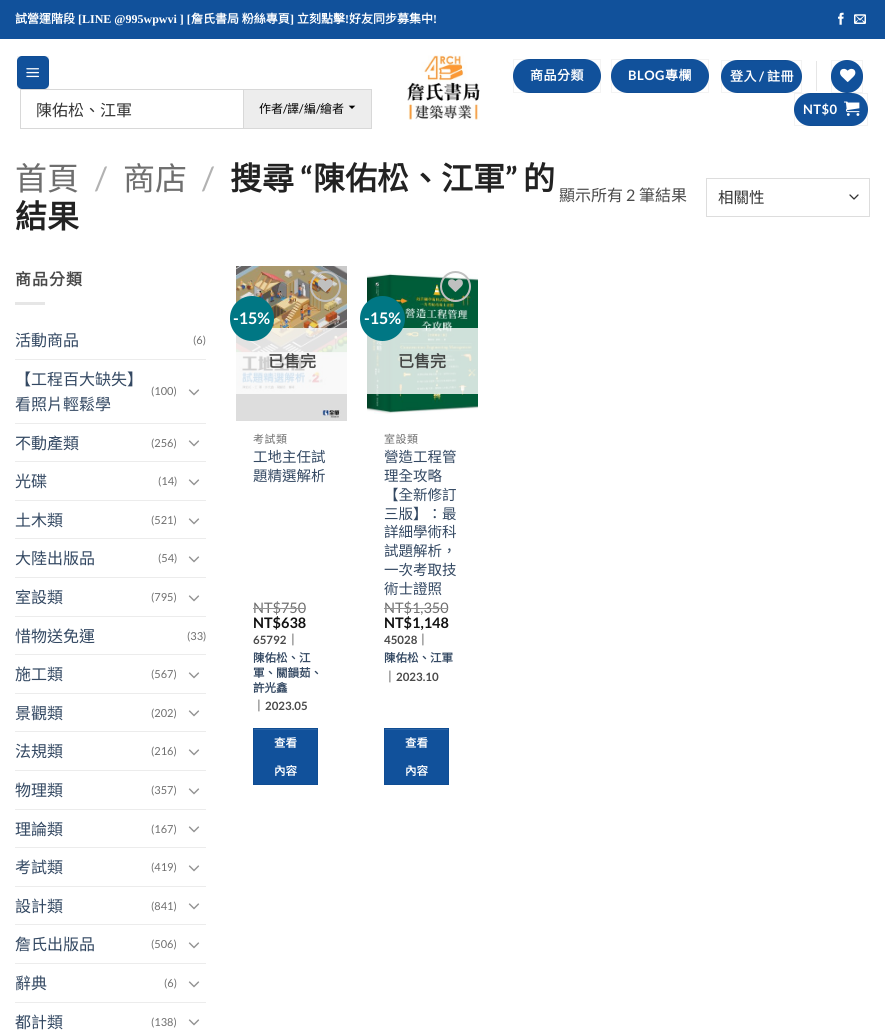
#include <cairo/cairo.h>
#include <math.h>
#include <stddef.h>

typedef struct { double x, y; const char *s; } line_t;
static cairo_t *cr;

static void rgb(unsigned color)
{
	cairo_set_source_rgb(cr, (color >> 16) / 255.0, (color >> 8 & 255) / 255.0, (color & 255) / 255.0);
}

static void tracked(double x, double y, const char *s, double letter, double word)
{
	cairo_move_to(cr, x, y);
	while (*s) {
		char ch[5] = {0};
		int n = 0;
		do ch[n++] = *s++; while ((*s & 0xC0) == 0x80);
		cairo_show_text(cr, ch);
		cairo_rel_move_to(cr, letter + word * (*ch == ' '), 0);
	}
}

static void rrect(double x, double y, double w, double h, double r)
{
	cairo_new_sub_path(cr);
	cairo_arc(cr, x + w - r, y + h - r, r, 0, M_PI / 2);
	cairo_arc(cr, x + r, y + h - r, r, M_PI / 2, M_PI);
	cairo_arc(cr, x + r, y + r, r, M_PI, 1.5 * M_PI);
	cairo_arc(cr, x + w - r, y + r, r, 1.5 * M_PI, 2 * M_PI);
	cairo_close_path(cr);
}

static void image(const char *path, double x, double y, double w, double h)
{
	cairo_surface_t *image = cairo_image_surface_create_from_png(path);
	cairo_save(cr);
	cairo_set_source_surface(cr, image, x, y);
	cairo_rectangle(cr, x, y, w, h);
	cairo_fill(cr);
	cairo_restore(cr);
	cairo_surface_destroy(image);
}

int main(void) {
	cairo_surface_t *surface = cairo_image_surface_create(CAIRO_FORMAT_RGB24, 885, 1030);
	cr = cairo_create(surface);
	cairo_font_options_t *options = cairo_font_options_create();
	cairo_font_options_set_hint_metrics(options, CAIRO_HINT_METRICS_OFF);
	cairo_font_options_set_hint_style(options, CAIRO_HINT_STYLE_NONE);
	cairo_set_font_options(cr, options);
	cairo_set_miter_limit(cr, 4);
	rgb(0xffffff);
	cairo_paint(cr);
	rgb(0x11519b);
	cairo_rectangle(cr, 0, 0, 885, 39);
	cairo_fill(cr);
	image("img/1.png", 838, 12, 6, 13);
	image("img/2.png", 854, 14, 12, 10);
	rrect(17, 56, 32, 33, 5);
	cairo_fill(cr);
	cairo_rectangle(cr, 17.5, 56.5, 31, 32);
	cairo_set_source_rgba(cr, 0, 0, 0, 0.05);
	cairo_set_line_width(cr, 1);
	cairo_stroke(cr);
	image("img/3.png", 26, 68, 13, 10);
	rgb(0xededed);
	cairo_rectangle(cr, 243.5, 89.5, 128, 39);
	cairo_fill_preserve(cr);
	rgb(0xd8d8d8);
	cairo_stroke(cr);
	cairo_rectangle(cr, 20.5, 89.5, 223, 39);
	cairo_stroke(cr);
	image("img/4.png", 348, 105, 8, 4);
	image("img/5.png", 407, 55, 73, 65);
	rgb(0x11519b);
	rrect(513, 59, 88, 34, 17);
	cairo_fill(cr);
	cairo_rectangle(cr, 513.5, 59.5, 87, 33);
	cairo_set_source_rgba(cr, 0, 0, 0, 0.05);
	cairo_stroke(cr);
	rgb(0x11519b);
	rrect(611, 59, 98, 34, 17);
	cairo_fill(cr);
	cairo_rectangle(cr, 611.5, 59.5, 97, 33);
	cairo_set_source_rgba(cr, 0, 0, 0, 0.05);
	cairo_stroke(cr);
	rgb(0x11519b);
	rrect(721, 60, 81, 33, 16.5);
	cairo_fill(cr);
	cairo_rectangle(cr, 721.5, 60.5, 80, 32);
	cairo_set_source_rgba(cr, 0, 0, 0, 0.05);
	cairo_stroke(cr);
	rgb(0xe6e6e6);
	cairo_rectangle(cr, 816, 61, 1, 30);
	cairo_fill(cr);
	rgb(0x11519b);
	rrect(831, 60, 32, 33, 16);
	cairo_fill(cr);
	cairo_rectangle(cr, 831.5, 60.5, 31, 32);
	cairo_set_source_rgba(cr, 0, 0, 0, 0.05);
	cairo_stroke(cr);
	image("img/6.png", 840, 68, 16, 14);
	rgb(0x11519b);
	rrect(794, 93, 74, 33, 16.5);
	cairo_fill(cr);
	cairo_rectangle(cr, 794.5, 93.5, 73, 32);
	cairo_set_source_rgba(cr, 0, 0, 0, 0.05);
	cairo_stroke(cr);
	image("img/7.png", 844, 101, 16, 15);
	cairo_new_path(cr);
	cairo_move_to(cr, 850, 195);
	cairo_line_to(cr, 854, 199);
	cairo_line_to(cr, 858, 195);
	rgb(0x333333);
	cairo_set_line_width(cr, 1.3);
	cairo_set_line_cap(cr, CAIRO_LINE_CAP_ROUND);
	cairo_set_line_join(cr, CAIRO_LINE_JOIN_ROUND);
	cairo_stroke(cr);
	cairo_rectangle(cr, 706.5, 178.5, 163, 38);
	rgb(0xdddddd);
	cairo_set_line_width(cr, 1);
	cairo_set_line_cap(cr, CAIRO_LINE_CAP_BUTT);
	cairo_set_line_join(cr, CAIRO_LINE_JOIN_MITER);
	cairo_stroke(cr);
	rgb(0xe6e6e6);
	cairo_rectangle(cr, 15, 302, 30, 3);
	cairo_fill(cr);
	rgb(0xececec);
	cairo_rectangle(cr, 15, 359, 191, 1);
	cairo_fill(cr);
	image("img/8.png", 188, 389, 12, 7);
	cairo_rectangle(cr, 15, 423, 191, 1);
	cairo_fill(cr);
	image("img/8.png", 188, 440, 12, 7);
	cairo_rectangle(cr, 15, 461, 191, 1);
	cairo_fill(cr);
	image("img/8.png", 188, 479, 12, 7);
	cairo_rectangle(cr, 15, 500, 191, 1);
	cairo_fill(cr);
	image("img/8.png", 188, 518, 12, 7);
	cairo_rectangle(cr, 15, 538, 191, 1);
	cairo_fill(cr);
	image("img/8.png", 188, 556, 12, 7);
	cairo_rectangle(cr, 15, 577, 191, 1);
	cairo_fill(cr);
	image("img/8.png", 188, 595, 12, 7);
	cairo_rectangle(cr, 15, 616, 191, 1);
	cairo_fill(cr);
	cairo_rectangle(cr, 15, 654, 191, 1);
	cairo_fill(cr);
	image("img/8.png", 188, 672, 12, 7);
	cairo_rectangle(cr, 15, 693, 191, 1);
	cairo_fill(cr);
	image("img/8.png", 188, 710, 12, 7);
	cairo_rectangle(cr, 15, 731, 191, 1);
	cairo_fill(cr);
	image("img/8.png", 188, 749, 12, 7);
	cairo_rectangle(cr, 15, 770, 191, 1);
	cairo_fill(cr);
	image("img/8.png", 188, 788, 12, 7);
	cairo_rectangle(cr, 15, 809, 191, 1);
	cairo_fill(cr);
	image("img/8.png", 188, 826, 12, 7);
	cairo_rectangle(cr, 15, 847, 191, 1);
	cairo_fill(cr);
	image("img/8.png", 188, 865, 12, 7);
	cairo_rectangle(cr, 15, 886, 191, 1);
	cairo_fill(cr);
	image("img/8.png", 188, 903, 12, 7);
	cairo_rectangle(cr, 15, 924, 191, 1);
	cairo_fill(cr);
	image("img/8.png", 188, 942, 12, 7);
	cairo_rectangle(cr, 15, 963, 191, 1);
	cairo_fill(cr);
	image("img/8.png", 188, 981, 12, 7);
	cairo_rectangle(cr, 15, 1002, 191, 1);
	cairo_fill(cr);
	image("img/8.png", 188, 1019, 12, 7);
	image("img/9.png", 236, 266, 111, 155);
	cairo_set_source_rgba(cr, 1, 1, 1, 0.81);
	cairo_rectangle(cr, 236, 328, 111, 66);
	cairo_fill(cr);
	rgb(0x007784);
	rrect(230, 296, 44, 45, 22);
	cairo_fill(cr);
	cairo_arc(cr, 325.5, 286.5, 14.5, 0, 2 * M_PI);
	rgb(0xc0c0c0);
	cairo_set_line_width(cr, 2);
	cairo_stroke(cr);
	image("img/10.png", 318, 279, 15, 13);
	rgb(0x11519b);
	cairo_rectangle(cr, 254, 730, 63, 54);
	cairo_fill(cr);
	cairo_rectangle(cr, 253.5, 728.5, 64, 56);
	rgb(0x104d93);
	cairo_set_line_width(cr, 1);
	cairo_stroke(cr);
	cairo_save(cr);
	cairo_rectangle(cr, 254, 729, 63, 55);
	cairo_clip(cr);
	rgb(0x2962a5);
	cairo_set_fill_rule(cr, CAIRO_FILL_RULE_EVEN_ODD);
	cairo_new_path(cr);
	cairo_move_to(cr, 140, 630);
	cairo_line_to(cr, 432, 630);
	cairo_line_to(cr, 432, 883);
	cairo_line_to(cr, 140, 883);
	cairo_close_path(cr);
	cairo_move_to(cr, 240, 730);
	cairo_line_to(cr, 334, 730);
	cairo_line_to(cr, 334, 785);
	cairo_line_to(cr, 240, 785);
	cairo_close_path(cr);
	cairo_fill(cr);
	cairo_restore(cr);
	image("img/12.png", 367, 273, 111, 141);
	cairo_set_source_rgba(cr, 1, 1, 1, 0.81);
	cairo_rectangle(cr, 367, 328, 111, 66);
	cairo_fill(cr);
	rgb(0x007784);
	cairo_arc(cr, 382.5, 318.5, 22.5, 0, 2 * M_PI);
	cairo_fill(cr);
	cairo_arc(cr, 455.5, 286.5, 14.5, 0, 2 * M_PI);
	rgb(0xc0c0c0);
	cairo_set_line_width(cr, 2);
	cairo_stroke(cr);
	image("img/11.png", 448, 279, 15, 13);
	rgb(0x11519b);
	cairo_rectangle(cr, 385, 730, 63, 54);
	cairo_fill(cr);
	cairo_rectangle(cr, 384.5, 728.5, 64, 56);
	rgb(0x104d93);
	cairo_set_line_width(cr, 1);
	cairo_stroke(cr);
	cairo_save(cr);
	cairo_rectangle(cr, 385, 729, 63, 55);
	cairo_clip(cr);
	rgb(0x2962a5);
	cairo_set_fill_rule(cr, CAIRO_FILL_RULE_EVEN_ODD);
	cairo_new_path(cr);
	cairo_move_to(cr, 270, 630);
	cairo_line_to(cr, 563, 630);
	cairo_line_to(cr, 563, 883);
	cairo_line_to(cr, 270, 883);
	cairo_close_path(cr);
	cairo_move_to(cr, 370, 730);
	cairo_line_to(cr, 465, 730);
	cairo_line_to(cr, 465, 785);
	cairo_line_to(cr, 370, 785);
	cairo_close_path(cr);
	cairo_fill(cr);
	cairo_restore(cr);
	cairo_select_font_face(cr, "Noto Sans CJK TC", CAIRO_FONT_SLANT_NORMAL, CAIRO_FONT_WEIGHT_BOLD);
	cairo_set_font_size(cr, 12);
	rgb(0xffffff);
	cairo_move_to(cr, 15, 23);
	cairo_show_text(cr, "試營運階段");
	cairo_select_font_face(cr, "Liberation Serif", CAIRO_FONT_SLANT_NORMAL, CAIRO_FONT_WEIGHT_BOLD);
	cairo_move_to(cr, 78, 23);
	cairo_show_text(cr, "[LINE @995wpwvi ] [");
	cairo_select_font_face(cr, "Noto Sans CJK TC", CAIRO_FONT_SLANT_NORMAL, CAIRO_FONT_WEIGHT_BOLD);
	cairo_move_to(cr, 191, 23);
	cairo_show_text(cr, "詹氏書局 粉絲專頁");
	cairo_select_font_face(cr, "Liberation Serif", CAIRO_FONT_SLANT_NORMAL, CAIRO_FONT_WEIGHT_BOLD);
	cairo_move_to(cr, 290, 23);
	cairo_show_text(cr, "]");
	cairo_select_font_face(cr, "Noto Sans CJK TC", CAIRO_FONT_SLANT_NORMAL, CAIRO_FONT_WEIGHT_BOLD);
	cairo_move_to(cr, 297, 23);
	cairo_show_text(cr, "立刻點擊");
	cairo_select_font_face(cr, "Liberation Serif", CAIRO_FONT_SLANT_NORMAL, CAIRO_FONT_WEIGHT_BOLD);
	cairo_move_to(cr, 345, 23);
	cairo_show_text(cr, "!");
	cairo_select_font_face(cr, "Noto Sans CJK TC", CAIRO_FONT_SLANT_NORMAL, CAIRO_FONT_WEIGHT_BOLD);
	cairo_move_to(cr, 349, 23);
	cairo_show_text(cr, "好友同步募集中");
	cairo_select_font_face(cr, "Liberation Serif", CAIRO_FONT_SLANT_NORMAL, CAIRO_FONT_WEIGHT_BOLD);
	cairo_move_to(cr, 433, 23);
	cairo_show_text(cr, "!");
	cairo_select_font_face(cr, "Noto Sans CJK TC", CAIRO_FONT_SLANT_NORMAL, CAIRO_FONT_WEIGHT_NORMAL);
	cairo_set_font_size(cr, 16);
	rgb(0x333333);
	cairo_move_to(cr, 36, 116);
	cairo_show_text(cr, "陳佑松、江軍");
	cairo_set_font_size(cr, 12);
	rgb(0x000000);
	cairo_move_to(cr, 259, 113);
	cairo_show_text(cr, "作者");
	cairo_select_font_face(cr, "Lato", CAIRO_FONT_SLANT_NORMAL, CAIRO_FONT_WEIGHT_NORMAL);
	cairo_move_to(cr, 283, 113);
	cairo_show_text(cr, "/");
	cairo_select_font_face(cr, "Noto Sans CJK TC", CAIRO_FONT_SLANT_NORMAL, CAIRO_FONT_WEIGHT_NORMAL);
	cairo_move_to(cr, 287, 113);
	cairo_show_text(cr, "譯");
	cairo_select_font_face(cr, "Lato", CAIRO_FONT_SLANT_NORMAL, CAIRO_FONT_WEIGHT_NORMAL);
	cairo_move_to(cr, 299, 113);
	cairo_show_text(cr, "/");
	cairo_select_font_face(cr, "Noto Sans CJK TC", CAIRO_FONT_SLANT_NORMAL, CAIRO_FONT_WEIGHT_NORMAL);
	cairo_move_to(cr, 304, 113);
	cairo_show_text(cr, "編");
	cairo_select_font_face(cr, "Lato", CAIRO_FONT_SLANT_NORMAL, CAIRO_FONT_WEIGHT_NORMAL);
	cairo_move_to(cr, 316, 113);
	cairo_show_text(cr, "/");
	cairo_select_font_face(cr, "Noto Sans CJK TC", CAIRO_FONT_SLANT_NORMAL, CAIRO_FONT_WEIGHT_NORMAL);
	cairo_move_to(cr, 320, 113);
	cairo_show_text(cr, "繪者");
	cairo_select_font_face(cr, "Noto Sans CJK TC", CAIRO_FONT_SLANT_NORMAL, CAIRO_FONT_WEIGHT_BOLD);
	cairo_set_font_size(cr, 13);
	rgb(0xffffff);
	tracked(530, 80, "商品分類", 0.5, 0);
	cairo_select_font_face(cr, "Lato", CAIRO_FONT_SLANT_NORMAL, CAIRO_FONT_WEIGHT_BOLD);
	tracked(628, 80, "BLOG", 0.5, 0);
	cairo_select_font_face(cr, "Noto Sans CJK TC", CAIRO_FONT_SLANT_NORMAL, CAIRO_FONT_WEIGHT_BOLD);
	tracked(665, 80, "專欄", 0.5, 0);
	tracked(730, 81, "登入", 0.5, 0);
	cairo_select_font_face(cr, "Lato", CAIRO_FONT_SLANT_NORMAL, CAIRO_FONT_WEIGHT_BOLD);
	tracked(759, 81, "/", 0.5, 0);
	cairo_select_font_face(cr, "Noto Sans CJK TC", CAIRO_FONT_SLANT_NORMAL, CAIRO_FONT_WEIGHT_BOLD);
	tracked(767, 81, "註冊", 0.5, 0);
	cairo_select_font_face(cr, "Lato", CAIRO_FONT_SLANT_NORMAL, CAIRO_FONT_WEIGHT_BOLD);
	tracked(803, 114, "NT$0", 0.5, 0);
	cairo_select_font_face(cr, "Noto Sans CJK TC", CAIRO_FONT_SLANT_NORMAL, CAIRO_FONT_WEIGHT_NORMAL);
	cairo_set_font_size(cr, 32);
	rgb(0x6e6e6e);
	cairo_move_to(cr, 15, 190);
	cairo_show_text(cr, "首頁");
	cairo_select_font_face(cr, "Lato", CAIRO_FONT_SLANT_NORMAL, CAIRO_FONT_WEIGHT_NORMAL);
	rgb(0xb2b2b2);
	cairo_move_to(cr, 95, 190);
	cairo_show_text(cr, "/");
	cairo_select_font_face(cr, "Noto Sans CJK TC", CAIRO_FONT_SLANT_NORMAL, CAIRO_FONT_WEIGHT_NORMAL);
	rgb(0x6e6e6e);
	cairo_move_to(cr, 123, 190);
	cairo_show_text(cr, "商店");
	cairo_select_font_face(cr, "Lato", CAIRO_FONT_SLANT_NORMAL, CAIRO_FONT_WEIGHT_NORMAL);
	rgb(0xb2b2b2);
	cairo_move_to(cr, 202, 190);
	cairo_show_text(cr, "/");
	cairo_select_font_face(cr, "Noto Sans CJK TC", CAIRO_FONT_SLANT_NORMAL, CAIRO_FONT_WEIGHT_BOLD);
	rgb(0x222222);
	cairo_move_to(cr, 230, 190);
	cairo_show_text(cr, "搜尋");
	cairo_select_font_face(cr, "Lato", CAIRO_FONT_SLANT_NORMAL, CAIRO_FONT_WEIGHT_BOLD);
	cairo_move_to(cr, 300, 190);
	cairo_show_text(cr, "“");
	cairo_select_font_face(cr, "Noto Sans CJK TC", CAIRO_FONT_SLANT_NORMAL, CAIRO_FONT_WEIGHT_BOLD);
	cairo_move_to(cr, 313, 190);
	cairo_show_text(cr, "陳佑松、江軍");
	cairo_select_font_face(cr, "Lato", CAIRO_FONT_SLANT_NORMAL, CAIRO_FONT_WEIGHT_BOLD);
	cairo_move_to(cr, 505, 190);
	cairo_show_text(cr, "”");
	cairo_select_font_face(cr, "Noto Sans CJK TC", CAIRO_FONT_SLANT_NORMAL, CAIRO_FONT_WEIGHT_BOLD);
	cairo_move_to(cr, 523, 190);
	cairo_show_text(cr, "的");
	cairo_move_to(cr, 15, 228);
	cairo_show_text(cr, "結果");
	cairo_select_font_face(cr, "Noto Sans CJK TC", CAIRO_FONT_SLANT_NORMAL, CAIRO_FONT_WEIGHT_NORMAL);
	cairo_set_font_size(cr, 16);
	rgb(0x4a4a4a);
	cairo_move_to(cr, 559, 201);
	cairo_show_text(cr, "顯示所有");
	cairo_select_font_face(cr, "Lato", CAIRO_FONT_SLANT_NORMAL, CAIRO_FONT_WEIGHT_NORMAL);
	cairo_move_to(cr, 626, 201);
	cairo_show_text(cr, "2");
	cairo_select_font_face(cr, "Noto Sans CJK TC", CAIRO_FONT_SLANT_NORMAL, CAIRO_FONT_WEIGHT_NORMAL);
	cairo_move_to(cr, 639, 201);
	cairo_show_text(cr, "筆結果");
	cairo_set_font_size(cr, 15.5);
	rgb(0x333333);
	cairo_move_to(cr, 718, 203);
	cairo_show_text(cr, "相關性");
	cairo_select_font_face(cr, "Noto Sans CJK TC", CAIRO_FONT_SLANT_NORMAL, CAIRO_FONT_WEIGHT_BOLD);
	cairo_set_font_size(cr, 16);
	rgb(0x4a4a4a);
	tracked(15, 285, "商品分類", 1, 0);
	cairo_select_font_face(cr, "Noto Sans CJK TC", CAIRO_FONT_SLANT_NORMAL, CAIRO_FONT_WEIGHT_NORMAL);
	rgb(0x334862);
	cairo_move_to(cr, 15, 346);
	cairo_show_text(cr, "活動商品");
	cairo_select_font_face(cr, "Lato", CAIRO_FONT_SLANT_NORMAL, CAIRO_FONT_WEIGHT_NORMAL);
	cairo_set_font_size(cr, 11);
	rgb(0x6e6e6e);
	cairo_move_to(cr, 193, 344);
	cairo_show_text(cr, "(6)");
	cairo_select_font_face(cr, "Noto Sans CJK TC", CAIRO_FONT_SLANT_NORMAL, CAIRO_FONT_WEIGHT_NORMAL);
	cairo_set_font_size(cr, 16);
	rgb(0x334862);
	cairo_move_to(cr, 15, 385);
	cairo_show_text(cr, "【工程百大缺失】");
	cairo_move_to(cr, 15, 410);
	cairo_show_text(cr, "看照片輕鬆學");
	cairo_select_font_face(cr, "Lato", CAIRO_FONT_SLANT_NORMAL, CAIRO_FONT_WEIGHT_NORMAL);
	cairo_set_font_size(cr, 11);
	rgb(0x6e6e6e);
	cairo_move_to(cr, 151, 395);
	cairo_show_text(cr, "(100)");
	cairo_select_font_face(cr, "Noto Sans CJK TC", CAIRO_FONT_SLANT_NORMAL, CAIRO_FONT_WEIGHT_NORMAL);
	cairo_set_font_size(cr, 16);
	rgb(0x334862);
	cairo_move_to(cr, 15, 449);
	cairo_show_text(cr, "不動產類");
	cairo_select_font_face(cr, "Lato", CAIRO_FONT_SLANT_NORMAL, CAIRO_FONT_WEIGHT_NORMAL);
	cairo_set_font_size(cr, 11);
	rgb(0x6e6e6e);
	cairo_move_to(cr, 151, 447);
	cairo_show_text(cr, "(256)");
	cairo_select_font_face(cr, "Noto Sans CJK TC", CAIRO_FONT_SLANT_NORMAL, CAIRO_FONT_WEIGHT_NORMAL);
	cairo_set_font_size(cr, 16);
	rgb(0x334862);
	cairo_move_to(cr, 15, 487);
	cairo_show_text(cr, "光碟");
	cairo_select_font_face(cr, "Lato", CAIRO_FONT_SLANT_NORMAL, CAIRO_FONT_WEIGHT_NORMAL);
	cairo_set_font_size(cr, 11);
	rgb(0x6e6e6e);
	cairo_move_to(cr, 158, 485);
	cairo_show_text(cr, "(14)");
	cairo_select_font_face(cr, "Noto Sans CJK TC", CAIRO_FONT_SLANT_NORMAL, CAIRO_FONT_WEIGHT_NORMAL);
	cairo_set_font_size(cr, 16);
	rgb(0x334862);
	cairo_move_to(cr, 15, 526);
	cairo_show_text(cr, "土木類");
	cairo_select_font_face(cr, "Lato", CAIRO_FONT_SLANT_NORMAL, CAIRO_FONT_WEIGHT_NORMAL);
	cairo_set_font_size(cr, 11);
	rgb(0x6e6e6e);
	cairo_move_to(cr, 151, 524);
	cairo_show_text(cr, "(521)");
	cairo_select_font_face(cr, "Noto Sans CJK TC", CAIRO_FONT_SLANT_NORMAL, CAIRO_FONT_WEIGHT_NORMAL);
	cairo_set_font_size(cr, 16);
	rgb(0x334862);
	cairo_move_to(cr, 15, 564);
	cairo_show_text(cr, "大陸出版品");
	cairo_select_font_face(cr, "Lato", CAIRO_FONT_SLANT_NORMAL, CAIRO_FONT_WEIGHT_NORMAL);
	cairo_set_font_size(cr, 11);
	rgb(0x6e6e6e);
	cairo_move_to(cr, 158, 562);
	cairo_show_text(cr, "(54)");
	cairo_select_font_face(cr, "Noto Sans CJK TC", CAIRO_FONT_SLANT_NORMAL, CAIRO_FONT_WEIGHT_NORMAL);
	cairo_set_font_size(cr, 16);
	rgb(0x334862);
	cairo_move_to(cr, 15, 603);
	cairo_show_text(cr, "室設類");
	cairo_select_font_face(cr, "Lato", CAIRO_FONT_SLANT_NORMAL, CAIRO_FONT_WEIGHT_NORMAL);
	cairo_set_font_size(cr, 11);
	rgb(0x6e6e6e);
	cairo_move_to(cr, 151, 601);
	cairo_show_text(cr, "(795)");
	cairo_select_font_face(cr, "Noto Sans CJK TC", CAIRO_FONT_SLANT_NORMAL, CAIRO_FONT_WEIGHT_NORMAL);
	cairo_set_font_size(cr, 16);
	rgb(0x334862);
	cairo_move_to(cr, 15, 642);
	cairo_show_text(cr, "惜物送免運");
	cairo_select_font_face(cr, "Lato", CAIRO_FONT_SLANT_NORMAL, CAIRO_FONT_WEIGHT_NORMAL);
	cairo_set_font_size(cr, 11);
	rgb(0x6e6e6e);
	cairo_move_to(cr, 187, 640);
	cairo_show_text(cr, "(33)");
	cairo_select_font_face(cr, "Noto Sans CJK TC", CAIRO_FONT_SLANT_NORMAL, CAIRO_FONT_WEIGHT_NORMAL);
	cairo_set_font_size(cr, 16);
	rgb(0x334862);
	cairo_move_to(cr, 15, 680);
	cairo_show_text(cr, "施工類");
	cairo_select_font_face(cr, "Lato", CAIRO_FONT_SLANT_NORMAL, CAIRO_FONT_WEIGHT_NORMAL);
	cairo_set_font_size(cr, 11);
	rgb(0x6e6e6e);
	cairo_move_to(cr, 151, 678);
	cairo_show_text(cr, "(567)");
	cairo_select_font_face(cr, "Noto Sans CJK TC", CAIRO_FONT_SLANT_NORMAL, CAIRO_FONT_WEIGHT_NORMAL);
	cairo_set_font_size(cr, 16);
	rgb(0x334862);
	cairo_move_to(cr, 15, 719);
	cairo_show_text(cr, "景觀類");
	cairo_select_font_face(cr, "Lato", CAIRO_FONT_SLANT_NORMAL, CAIRO_FONT_WEIGHT_NORMAL);
	cairo_set_font_size(cr, 11);
	rgb(0x6e6e6e);
	cairo_move_to(cr, 151, 717);
	cairo_show_text(cr, "(202)");
	cairo_select_font_face(cr, "Noto Sans CJK TC", CAIRO_FONT_SLANT_NORMAL, CAIRO_FONT_WEIGHT_NORMAL);
	cairo_set_font_size(cr, 16);
	rgb(0x334862);
	cairo_move_to(cr, 15, 757);
	cairo_show_text(cr, "法規類");
	cairo_select_font_face(cr, "Lato", CAIRO_FONT_SLANT_NORMAL, CAIRO_FONT_WEIGHT_NORMAL);
	cairo_set_font_size(cr, 11);
	rgb(0x6e6e6e);
	cairo_move_to(cr, 151, 755);
	cairo_show_text(cr, "(216)");
	cairo_select_font_face(cr, "Noto Sans CJK TC", CAIRO_FONT_SLANT_NORMAL, CAIRO_FONT_WEIGHT_NORMAL);
	cairo_set_font_size(cr, 16);
	rgb(0x334862);
	cairo_move_to(cr, 15, 796);
	cairo_show_text(cr, "物理類");
	cairo_select_font_face(cr, "Lato", CAIRO_FONT_SLANT_NORMAL, CAIRO_FONT_WEIGHT_NORMAL);
	cairo_set_font_size(cr, 11);
	rgb(0x6e6e6e);
	cairo_move_to(cr, 151, 794);
	cairo_show_text(cr, "(357)");
	cairo_select_font_face(cr, "Noto Sans CJK TC", CAIRO_FONT_SLANT_NORMAL, CAIRO_FONT_WEIGHT_NORMAL);
	cairo_set_font_size(cr, 16);
	rgb(0x334862);
	cairo_move_to(cr, 15, 835);
	cairo_show_text(cr, "理論類");
	cairo_select_font_face(cr, "Lato", CAIRO_FONT_SLANT_NORMAL, CAIRO_FONT_WEIGHT_NORMAL);
	cairo_set_font_size(cr, 11);
	rgb(0x6e6e6e);
	cairo_move_to(cr, 151, 833);
	cairo_show_text(cr, "(167)");
	cairo_select_font_face(cr, "Noto Sans CJK TC", CAIRO_FONT_SLANT_NORMAL, CAIRO_FONT_WEIGHT_NORMAL);
	cairo_set_font_size(cr, 16);
	rgb(0x334862);
	cairo_move_to(cr, 15, 873);
	cairo_show_text(cr, "考試類");
	cairo_select_font_face(cr, "Lato", CAIRO_FONT_SLANT_NORMAL, CAIRO_FONT_WEIGHT_NORMAL);
	cairo_set_font_size(cr, 11);
	rgb(0x6e6e6e);
	cairo_move_to(cr, 151, 871);
	cairo_show_text(cr, "(419)");
	cairo_select_font_face(cr, "Noto Sans CJK TC", CAIRO_FONT_SLANT_NORMAL, CAIRO_FONT_WEIGHT_NORMAL);
	cairo_set_font_size(cr, 16);
	rgb(0x334862);
	cairo_move_to(cr, 15, 912);
	cairo_show_text(cr, "設計類");
	cairo_select_font_face(cr, "Lato", CAIRO_FONT_SLANT_NORMAL, CAIRO_FONT_WEIGHT_NORMAL);
	cairo_set_font_size(cr, 11);
	rgb(0x6e6e6e);
	cairo_move_to(cr, 151, 910);
	cairo_show_text(cr, "(841)");
	cairo_select_font_face(cr, "Noto Sans CJK TC", CAIRO_FONT_SLANT_NORMAL, CAIRO_FONT_WEIGHT_NORMAL);
	cairo_set_font_size(cr, 16);
	rgb(0x334862);
	cairo_move_to(cr, 15, 950);
	cairo_show_text(cr, "詹氏出版品");
	cairo_select_font_face(cr, "Lato", CAIRO_FONT_SLANT_NORMAL, CAIRO_FONT_WEIGHT_NORMAL);
	cairo_set_font_size(cr, 11);
	rgb(0x6e6e6e);
	cairo_move_to(cr, 151, 948);
	cairo_show_text(cr, "(506)");
	cairo_select_font_face(cr, "Noto Sans CJK TC", CAIRO_FONT_SLANT_NORMAL, CAIRO_FONT_WEIGHT_NORMAL);
	cairo_set_font_size(cr, 16);
	rgb(0x334862);
	cairo_move_to(cr, 15, 989);
	cairo_show_text(cr, "辭典");
	cairo_select_font_face(cr, "Lato", CAIRO_FONT_SLANT_NORMAL, CAIRO_FONT_WEIGHT_NORMAL);
	cairo_set_font_size(cr, 11);
	rgb(0x6e6e6e);
	cairo_move_to(cr, 164, 987);
	cairo_show_text(cr, "(6)");
	cairo_select_font_face(cr, "Noto Sans CJK TC", CAIRO_FONT_SLANT_NORMAL, CAIRO_FONT_WEIGHT_NORMAL);
	cairo_set_font_size(cr, 16);
	rgb(0x334862);
	cairo_move_to(cr, 15, 1028);
	cairo_show_text(cr, "都計類");
	cairo_select_font_face(cr, "Lato", CAIRO_FONT_SLANT_NORMAL, CAIRO_FONT_WEIGHT_NORMAL);
	cairo_set_font_size(cr, 11);
	rgb(0x6e6e6e);
	cairo_move_to(cr, 151, 1026);
	cairo_show_text(cr, "(138)");
	cairo_select_font_face(cr, "Lato", CAIRO_FONT_SLANT_NORMAL, CAIRO_FONT_WEIGHT_BOLD);
	cairo_set_font_size(cr, 16);
	rgb(0xffffff);
	cairo_move_to(cr, 233, 324);
	cairo_show_text(cr, "-15%");
	cairo_select_font_face(cr, "Noto Sans CJK TC", CAIRO_FONT_SLANT_NORMAL, CAIRO_FONT_WEIGHT_BOLD);
	rgb(0x4a4a4a);
	cairo_move_to(cr, 268, 367);
	cairo_show_text(cr, "已售完");
	cairo_select_font_face(cr, "Noto Sans CJK TC", CAIRO_FONT_SLANT_NORMAL, CAIRO_FONT_WEIGHT_NORMAL);
	cairo_set_font_size(cr, 11);
	rgb(0x6e6e6e);
	tracked(253, 443, "考試類", 0.5, 0);
	cairo_set_font_size(cr, 14.5);
	rgb(0x334862);
	cairo_move_to(cr, 253, 462);
	cairo_show_text(cr, "工地主任試");
	cairo_move_to(cr, 253, 481);
	cairo_show_text(cr, "題精選解析");
	cairo_select_font_face(cr, "Lato", CAIRO_FONT_SLANT_NORMAL, CAIRO_FONT_WEIGHT_NORMAL);
	rgb(0x6e6e6e);
	cairo_move_to(cr, 253, 613);
	cairo_show_text(cr, "NT$750");
	rgb(0x929292);
	cairo_rectangle(cr, 253, 608, 53, 1);
	cairo_fill(cr);
	cairo_select_font_face(cr, "Lato", CAIRO_FONT_SLANT_NORMAL, CAIRO_FONT_WEIGHT_BOLD);
	rgb(0x111111);
	cairo_move_to(cr, 253, 628);
	cairo_show_text(cr, "NT$638");
	cairo_set_font_size(cr, 11.5);
	rgb(0x4a4a4a);
	cairo_move_to(cr, 253, 644);
	cairo_show_text(cr, "65792");
	cairo_select_font_face(cr, "Noto Sans CJK TC", CAIRO_FONT_SLANT_NORMAL, CAIRO_FONT_WEIGHT_BOLD);
	cairo_move_to(cr, 287, 644);
	cairo_show_text(cr, "｜");
	rgb(0x334862);
	{
		static const line_t items[] = {
			{253, 662, "陳佑松、江"},
			{253, 677, "軍、關韻茹、"},
			{253, 692, "許光鑫"},
		};
		for (size_t i = 0; i < sizeof items / sizeof *items; i++) {
			cairo_move_to(cr, items[i].x, items[i].y);
			cairo_show_text(cr, items[i].s);
		}
	}
	rgb(0x4a4a4a);
	cairo_move_to(cr, 253, 710);
	cairo_show_text(cr, "｜");
	cairo_select_font_face(cr, "Lato", CAIRO_FONT_SLANT_NORMAL, CAIRO_FONT_WEIGHT_BOLD);
	cairo_move_to(cr, 265, 710);
	cairo_show_text(cr, "2023.05");
	cairo_select_font_face(cr, "Noto Sans CJK TC", CAIRO_FONT_SLANT_NORMAL, CAIRO_FONT_WEIGHT_BOLD);
	rgb(0xffffff);
	cairo_move_to(cr, 274, 747);
	cairo_show_text(cr, "查看");
	cairo_move_to(cr, 274, 775);
	cairo_show_text(cr, "內容");
	cairo_select_font_face(cr, "Lato", CAIRO_FONT_SLANT_NORMAL, CAIRO_FONT_WEIGHT_BOLD);
	cairo_set_font_size(cr, 16);
	cairo_move_to(cr, 364, 324);
	cairo_show_text(cr, "-15%");
	cairo_select_font_face(cr, "Noto Sans CJK TC", CAIRO_FONT_SLANT_NORMAL, CAIRO_FONT_WEIGHT_BOLD);
	rgb(0x434544);
	cairo_move_to(cr, 398, 367);
	cairo_show_text(cr, "已售完");
	cairo_select_font_face(cr, "Noto Sans CJK TC", CAIRO_FONT_SLANT_NORMAL, CAIRO_FONT_WEIGHT_NORMAL);
	cairo_set_font_size(cr, 11);
	rgb(0x6e6e6e);
	tracked(384, 443, "室設類", 0.5, 0);
	cairo_set_font_size(cr, 14.5);
	rgb(0x334862);
	{
		static const line_t items[] = {
			{384, 462, "營造工程管"},
			{384, 481, "理全攻略"},
			{384, 500, "【全新修訂"},
			{384, 519, "三版】：最"},
			{384, 537, "詳細學術科"},
			{384, 556, "試題解析，"},
			{384, 575, "一次考取技"},
			{384, 594, "術士證照"},
		};
		for (size_t i = 0; i < sizeof items / sizeof *items; i++) {
			cairo_move_to(cr, items[i].x, items[i].y);
			cairo_show_text(cr, items[i].s);
		}
	}
	cairo_select_font_face(cr, "Lato", CAIRO_FONT_SLANT_NORMAL, CAIRO_FONT_WEIGHT_NORMAL);
	rgb(0x6e6e6e);
	cairo_move_to(cr, 384, 613);
	cairo_show_text(cr, "NT$1,350");
	rgb(0x929292);
	cairo_rectangle(cr, 384, 608, 64, 1);
	cairo_fill(cr);
	cairo_select_font_face(cr, "Lato", CAIRO_FONT_SLANT_NORMAL, CAIRO_FONT_WEIGHT_BOLD);
	rgb(0x111111);
	cairo_move_to(cr, 384, 628);
	cairo_show_text(cr, "NT$1,148");
	cairo_set_font_size(cr, 11.5);
	rgb(0x4a4a4a);
	cairo_move_to(cr, 384, 644);
	cairo_show_text(cr, "45028");
	cairo_select_font_face(cr, "Noto Sans CJK TC", CAIRO_FONT_SLANT_NORMAL, CAIRO_FONT_WEIGHT_BOLD);
	cairo_move_to(cr, 417, 644);
	cairo_show_text(cr, "｜");
	rgb(0x334862);
	cairo_move_to(cr, 384, 662);
	cairo_show_text(cr, "陳佑松、江軍");
	rgb(0x4a4a4a);
	cairo_move_to(cr, 384, 681);
	cairo_show_text(cr, "｜");
	cairo_select_font_face(cr, "Lato", CAIRO_FONT_SLANT_NORMAL, CAIRO_FONT_WEIGHT_BOLD);
	cairo_move_to(cr, 396, 681);
	cairo_show_text(cr, "2023.10");
	cairo_select_font_face(cr, "Noto Sans CJK TC", CAIRO_FONT_SLANT_NORMAL, CAIRO_FONT_WEIGHT_BOLD);
	rgb(0xffffff);
	cairo_move_to(cr, 405, 747);
	cairo_show_text(cr, "查看");
	cairo_move_to(cr, 405, 775);
	cairo_show_text(cr, "內容");
	cairo_surface_write_to_png(surface, "page.png");
	cairo_font_options_destroy(options);
	cairo_destroy(cr);
	cairo_surface_destroy(surface);
	return 0;
}
